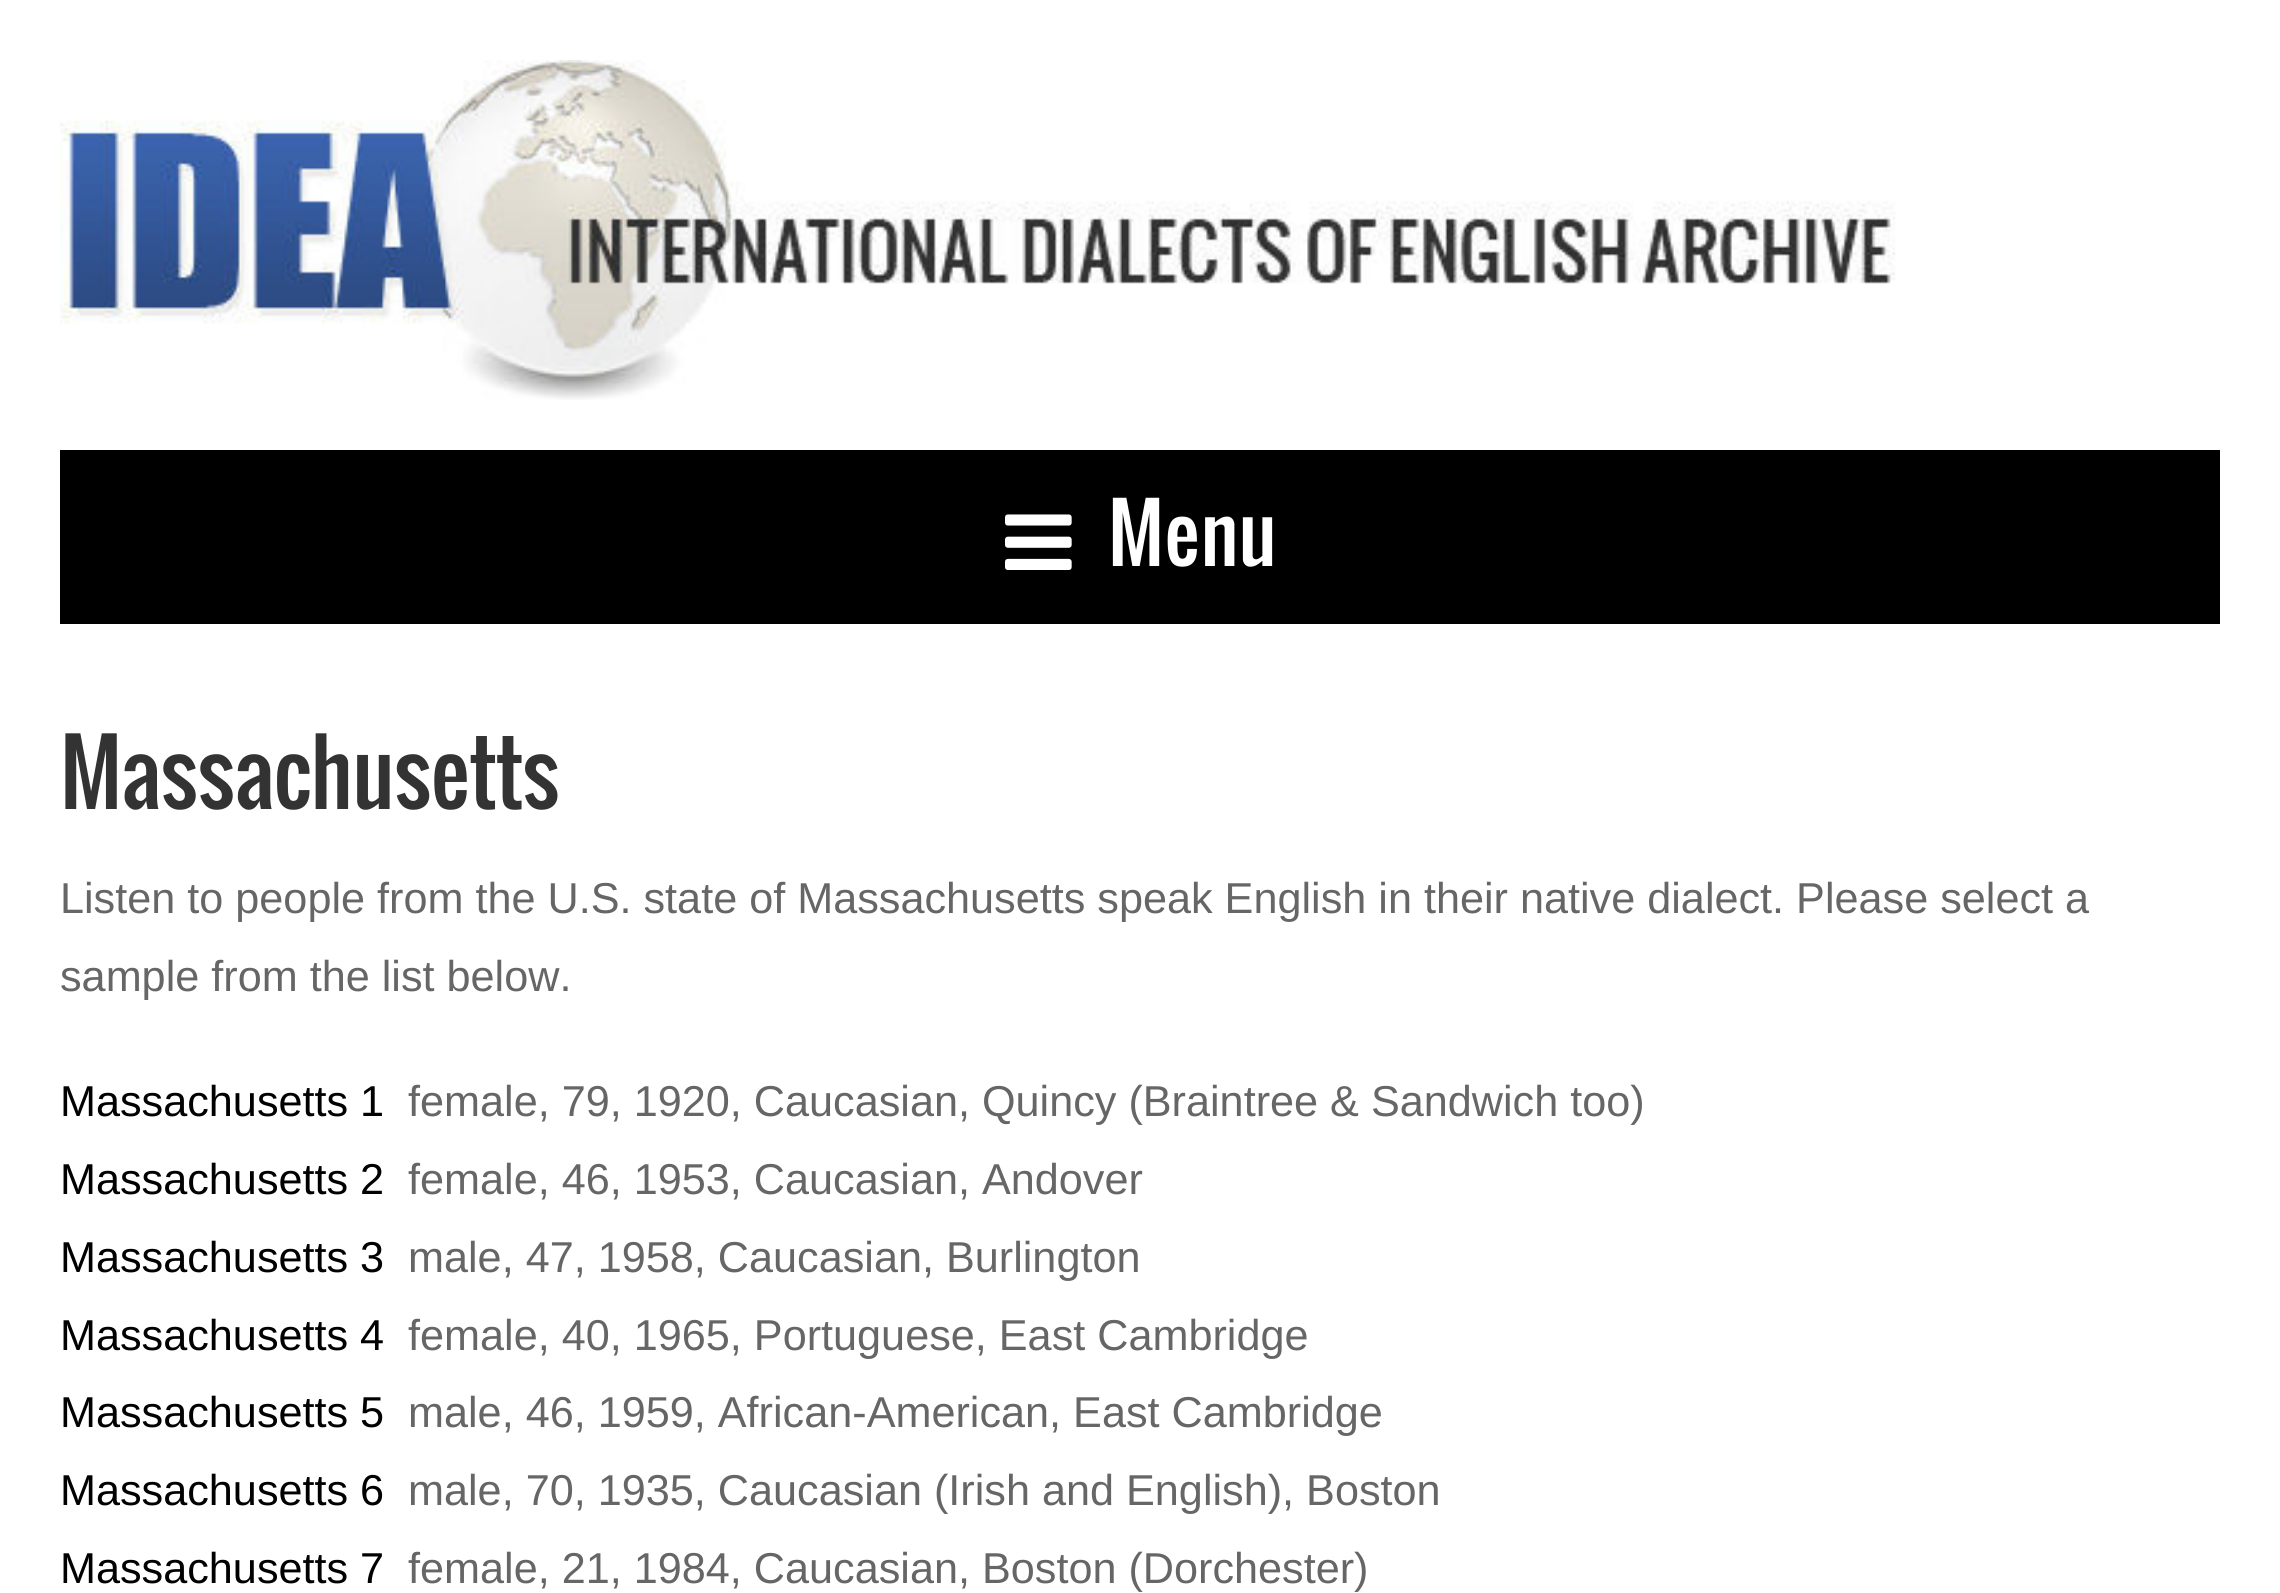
#include <cairo/cairo.h>
#include <math.h>
#include <stddef.h>

static cairo_t *cr;

static void rgb(unsigned color)
{
	cairo_set_source_rgb(cr, (color >> 16) / 255.0, (color >> 8 & 255) / 255.0, (color & 255) / 255.0);
}

static void tracked(double x, double y, const char *s, double letter, double word)
{
	cairo_move_to(cr, x, y);
	while (*s) {
		char ch[5] = {0};
		int n = 0;
		do ch[n++] = *s++; while ((*s & 0xC0) == 0x80);
		cairo_show_text(cr, ch);
		cairo_rel_move_to(cr, letter + word * (*ch == ' '), 0);
	}
}

static void image(const char *path, double x, double y, double w, double h)
{
	cairo_surface_t *image = cairo_image_surface_create_from_png(path);
	cairo_save(cr);
	cairo_set_source_surface(cr, image, x, y);
	cairo_rectangle(cr, x, y, w, h);
	cairo_fill(cr);
	cairo_restore(cr);
	cairo_surface_destroy(image);
}

int main(void) {
	cairo_surface_t *surface = cairo_image_surface_create(CAIRO_FORMAT_RGB24, 2280, 1593);
	cr = cairo_create(surface);
	cairo_font_options_t *options = cairo_font_options_create();
	cairo_font_options_set_hint_metrics(options, CAIRO_HINT_METRICS_OFF);
	cairo_font_options_set_hint_style(options, CAIRO_HINT_STYLE_NONE);
	cairo_set_font_options(cr, options);
	cairo_set_miter_limit(cr, 4);
	rgb(0xffffff);
	cairo_paint(cr);
	image("img/1.png", 60, 60, 1836, 340);
	rgb(0x000000);
	cairo_rectangle(cr, 60, 450, 2160, 174);
	cairo_fill(cr);
	image("img/2.png", 1005, 514, 67, 56);
	cairo_select_font_face(cr, "Oswald", CAIRO_FONT_SLANT_NORMAL, CAIRO_FONT_WEIGHT_NORMAL);
	cairo_set_font_size(cr, 78);
	rgb(0xffffff);
	cairo_move_to(cr, 1108, 566);
	cairo_show_text(cr, "Menu");
	cairo_set_font_size(cr, 86.5);
	rgb(0x333333);
	tracked(60, 809, "Massachusetts", -1.75, 0);
	cairo_select_font_face(cr, "Liberation Sans", CAIRO_FONT_SLANT_NORMAL, CAIRO_FONT_WEIGHT_NORMAL);
	cairo_set_font_size(cr, 43.2);
	rgb(0x666666);
	cairo_move_to(cr, 60, 913);
	cairo_show_text(cr, "Listen to people from the U.S. state of Massachusetts speak English in their native dialect. Please select a");
	cairo_move_to(cr, 60, 991);
	cairo_show_text(cr, "sample from the list below.");
	rgb(0x000000);
	cairo_move_to(cr, 60, 1116);
	cairo_show_text(cr, "Massachusetts 1");
	rgb(0x666666);
	cairo_move_to(cr, 408, 1116);
	cairo_show_text(cr, "female, 79, 1920, Caucasian, Quincy (Braintree & Sandwich too)");
	rgb(0x000000);
	cairo_move_to(cr, 60, 1194);
	cairo_show_text(cr, "Massachusetts 2");
	rgb(0x666666);
	cairo_move_to(cr, 408, 1194);
	cairo_show_text(cr, "female, 46, 1953, Caucasian, Andover");
	rgb(0x000000);
	cairo_move_to(cr, 60, 1272);
	cairo_show_text(cr, "Massachusetts 3");
	rgb(0x666666);
	cairo_move_to(cr, 408, 1272);
	cairo_show_text(cr, "male, 47, 1958, Caucasian, Burlington");
	rgb(0x000000);
	cairo_move_to(cr, 60, 1350);
	cairo_show_text(cr, "Massachusetts 4");
	rgb(0x666666);
	cairo_move_to(cr, 408, 1350);
	cairo_show_text(cr, "female, 40, 1965, Portuguese, East Cambridge");
	rgb(0x000000);
	cairo_move_to(cr, 60, 1427);
	cairo_show_text(cr, "Massachusetts 5");
	rgb(0x666666);
	cairo_move_to(cr, 408, 1427);
	cairo_show_text(cr, "male, 46, 1959, African-American, East Cambridge");
	rgb(0x000000);
	cairo_move_to(cr, 60, 1505);
	cairo_show_text(cr, "Massachusetts 6");
	rgb(0x666666);
	cairo_move_to(cr, 408, 1505);
	cairo_show_text(cr, "male, 70, 1935, Caucasian (Irish and English), Boston");
	rgb(0x000000);
	cairo_move_to(cr, 60, 1583);
	cairo_show_text(cr, "Massachusetts 7");
	rgb(0x666666);
	cairo_move_to(cr, 408, 1583);
	cairo_show_text(cr, "female, 21, 1984, Caucasian, Boston (Dorchester)");
	cairo_surface_write_to_png(surface, "page.png");
	cairo_font_options_destroy(options);
	cairo_destroy(cr);
	cairo_surface_destroy(surface);
	return 0;
}
